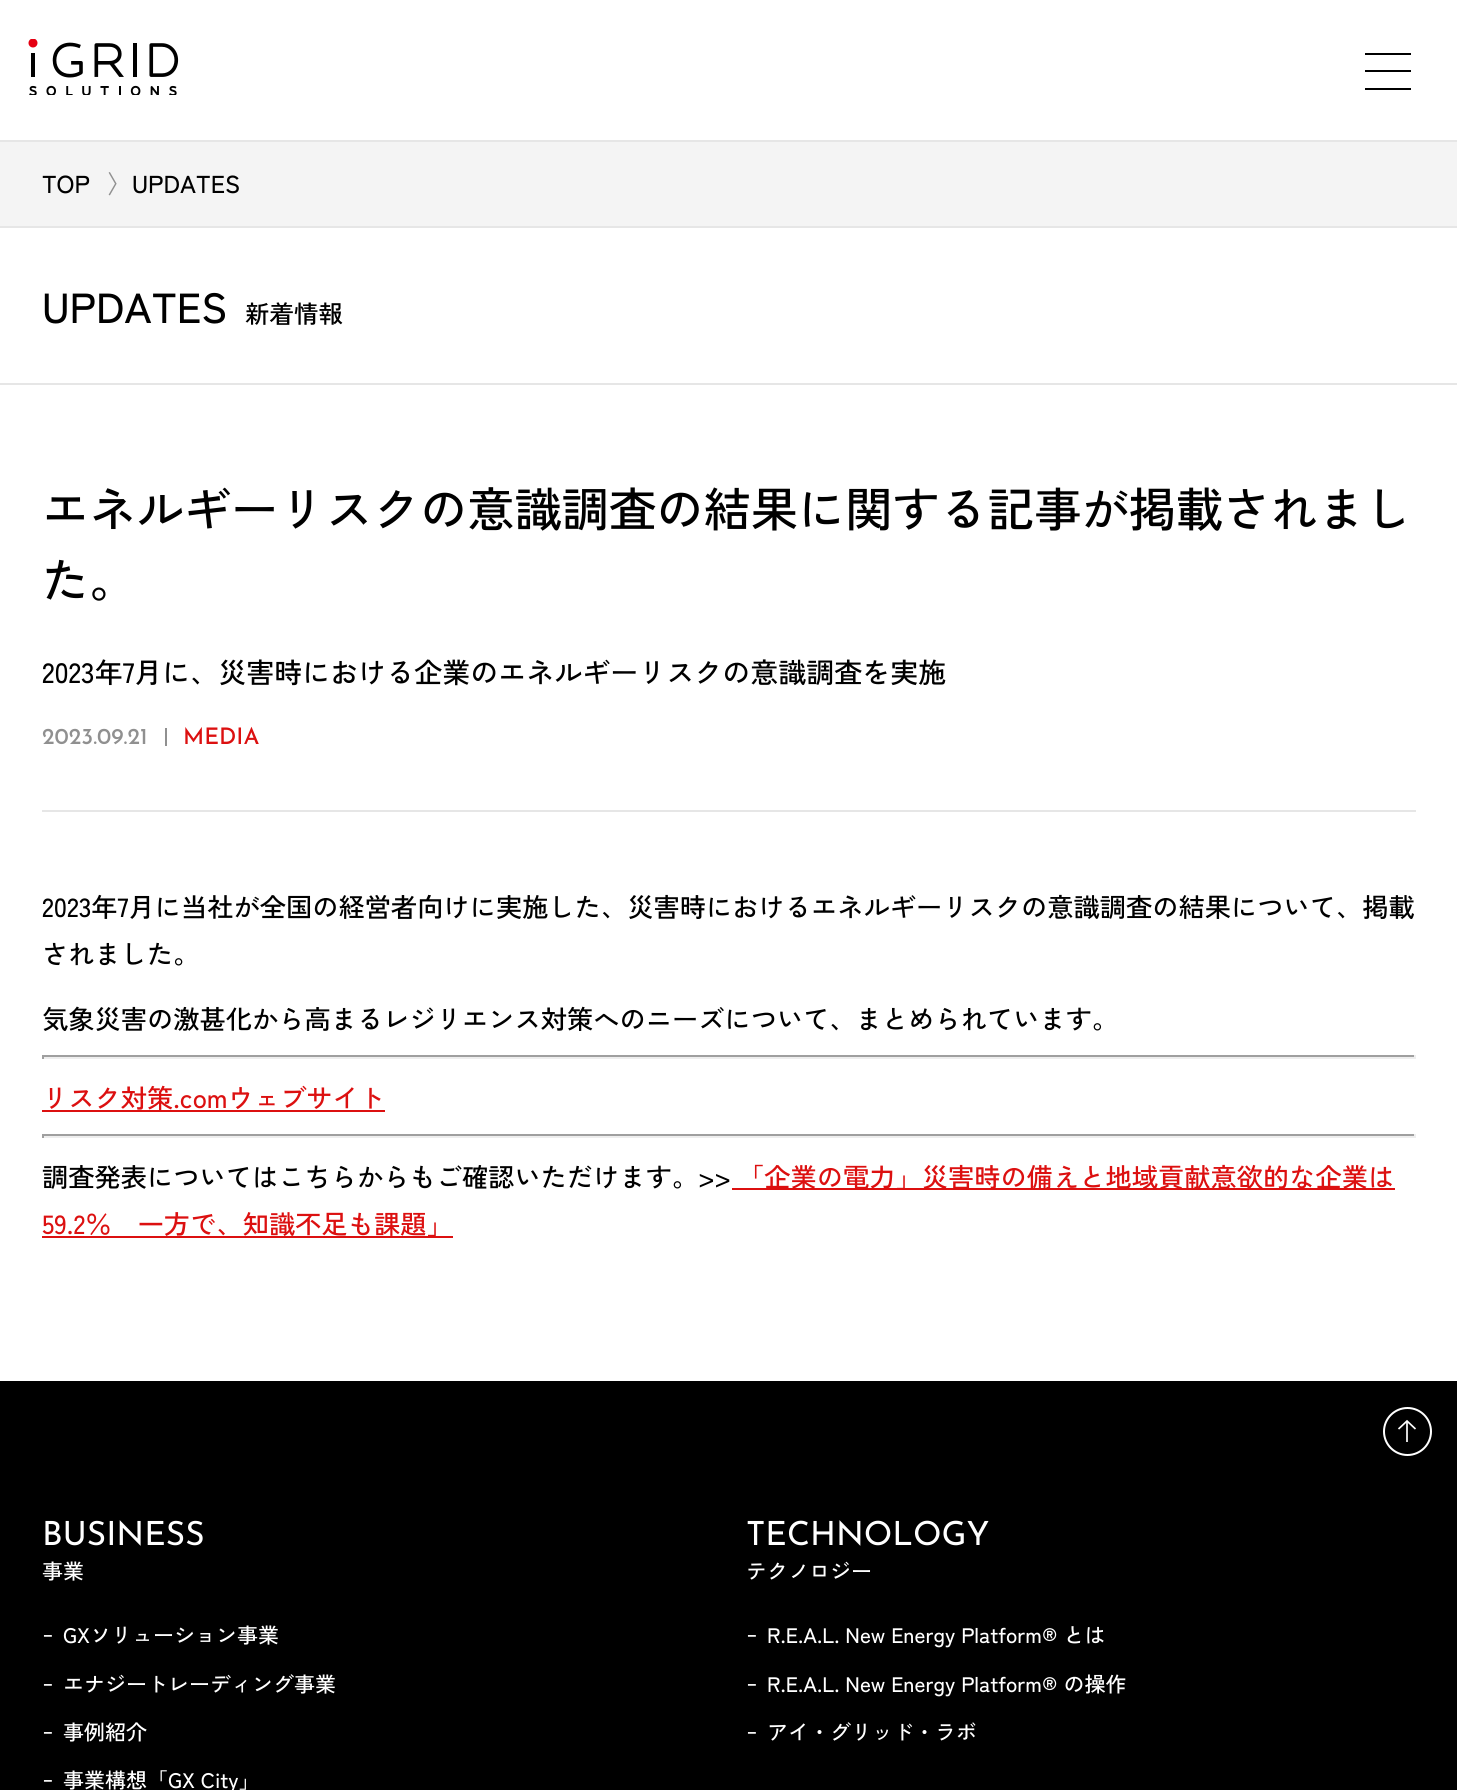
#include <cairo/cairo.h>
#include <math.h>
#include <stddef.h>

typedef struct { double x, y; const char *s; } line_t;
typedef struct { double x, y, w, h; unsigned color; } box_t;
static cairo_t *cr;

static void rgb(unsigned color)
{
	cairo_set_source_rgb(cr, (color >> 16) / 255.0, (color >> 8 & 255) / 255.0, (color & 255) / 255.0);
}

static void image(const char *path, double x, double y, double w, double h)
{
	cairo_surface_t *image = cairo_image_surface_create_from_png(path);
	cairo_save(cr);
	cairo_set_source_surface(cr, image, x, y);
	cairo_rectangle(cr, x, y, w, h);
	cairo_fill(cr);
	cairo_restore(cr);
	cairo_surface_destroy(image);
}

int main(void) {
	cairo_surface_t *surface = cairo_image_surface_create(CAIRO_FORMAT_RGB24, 1457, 1790);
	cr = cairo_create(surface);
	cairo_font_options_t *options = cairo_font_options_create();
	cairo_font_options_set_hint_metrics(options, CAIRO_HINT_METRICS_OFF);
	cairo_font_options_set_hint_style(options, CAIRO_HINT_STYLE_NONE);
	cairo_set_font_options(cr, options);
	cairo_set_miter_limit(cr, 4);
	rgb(0xffffff);
	cairo_paint(cr);
	image("img/1.png", 28, 39, 151, 56);
	{
		static const box_t items[] = {
			{1365, 53, 46, 2, 0x000000},
			{1365, 70, 46, 2, 0x000000},
			{1365, 88, 46, 2, 0x000000},
			{0, 140, 1457, 2, 0xe6e6e6},
			{0, 142, 1457, 84, 0xf4f4f4},
			{0, 226, 1457, 2, 0xe6e6e6},
			{0, 383, 1457, 2, 0xe6e6e6},
			{42, 810, 1374, 2, 0xe6e6e6},
			{165, 728, 2, 18, 0x909090},
			{42, 1055, 1374, 2, 0x9f9f9f},
			{1414, 1055, 2, 4, 0xeeeeee},
			{42, 1057, 1374, 2, 0xeeeeee},
			{42, 1055, 2, 4, 0x9f9f9f},
			{42, 1110, 343, 2, 0xdc1010},
			{42, 1134, 1374, 2, 0x9f9f9f},
			{1414, 1134, 2, 4, 0xeeeeee},
			{42, 1136, 1374, 2, 0xeeeeee},
			{42, 1134, 2, 4, 0x9f9f9f},
			{732, 1188, 663, 2, 0xdc1010},
			{42, 1236, 411, 2, 0xdc1010},
			{0, 1381, 1457, 409, 0x000000},
		};
		for (size_t i = 0; i < sizeof items / sizeof *items; i++) {
			rgb(items[i].color);
			cairo_rectangle(cr, items[i].x, items[i].y, items[i].w, items[i].h);
			cairo_fill(cr);
		}
	}
	cairo_arc(cr, 1407.5, 1431.5, 23.5, 0, 2 * M_PI);
	rgb(0xffffff);
	cairo_stroke(cr);
	rgb(0xd9d9d9);
	cairo_rectangle(cr, 1406, 1422, 2, 20);
	cairo_fill(cr);
	cairo_new_path(cr);
	cairo_move_to(cr, 1415.5, 1429);
	cairo_line_to(cr, 1407, 1421);
	cairo_line_to(cr, 1398.5, 1429);
	rgb(0xffffff);
	cairo_set_line_width(cr, 1.7);
	cairo_stroke(cr);
	cairo_select_font_face(cr, "Zen Kaku Gothic New Medium", CAIRO_FONT_SLANT_NORMAL, CAIRO_FONT_WEIGHT_NORMAL);
	cairo_set_font_size(cr, 24.5);
	rgb(0x000000);
	cairo_move_to(cr, 42, 193);
	cairo_show_text(cr, "TOP");
	rgb(0x909090);
	cairo_move_to(cr, 107, 193);
	cairo_show_text(cr, "〉");
	rgb(0x000000);
	cairo_move_to(cr, 132, 193);
	cairo_show_text(cr, "UPDATES");
	cairo_set_font_size(cr, 42);
	cairo_move_to(cr, 42, 323);
	cairo_show_text(cr, "UPDATES");
	cairo_set_font_size(cr, 24.5);
	cairo_move_to(cr, 245, 323);
	cairo_show_text(cr, "新着情報");
	cairo_set_font_size(cr, 47.25);
	cairo_move_to(cr, 42, 527);
	cairo_show_text(cr, "エネルギーリスクの意識調査の結果に関する記事が掲載されまし");
	cairo_move_to(cr, 42, 598);
	cairo_show_text(cr, "た。");
	cairo_set_font_size(cr, 28);
	cairo_move_to(cr, 42, 683);
	cairo_show_text(cr, "2023年7月に、災害時における企業のエネルギーリスクの意識調査を実施");
	cairo_select_font_face(cr, "Josefin Sans Medium", CAIRO_FONT_SLANT_NORMAL, CAIRO_FONT_WEIGHT_NORMAL);
	cairo_set_font_size(cr, 22.75);
	rgb(0x909090);
	cairo_move_to(cr, 42, 744);
	cairo_show_text(cr, "2023.09.21");
	rgb(0xdc1010);
	cairo_move_to(cr, 183, 744);
	cairo_show_text(cr, "MEDIA");
	cairo_select_font_face(cr, "Zen Kaku Gothic New Medium", CAIRO_FONT_SLANT_NORMAL, CAIRO_FONT_WEIGHT_NORMAL);
	cairo_set_font_size(cr, 26.25);
	rgb(0x000000);
	{
		static const line_t items[] = {
			{42, 917, "2023年7月に当社が全国の経営者向けに実施した、災害時におけるエネルギーリスクの意識調査の結果について、掲載"},
			{42, 964, "されました。"},
			{42, 1029, "気象災害の激甚化から高まるレジリエンス対策へのニーズについて、まとめられています。"},
		};
		for (size_t i = 0; i < sizeof items / sizeof *items; i++) {
			cairo_move_to(cr, items[i].x, items[i].y);
			cairo_show_text(cr, items[i].s);
		}
	}
	rgb(0xdc1010);
	cairo_move_to(cr, 42, 1108);
	cairo_show_text(cr, "リスク対策.comウェブサイト");
	rgb(0x000000);
	cairo_move_to(cr, 42, 1187);
	cairo_show_text(cr, "調査発表についてはこちらからもご確認いただけます。>>");
	rgb(0xdc1010);
	cairo_move_to(cr, 738, 1187);
	cairo_show_text(cr, "「企業の電力」災害時の備えと地域貢献意欲的な企業は");
	cairo_move_to(cr, 42, 1234);
	cairo_show_text(cr, "59.2％　一方で、知識不足も課題」");
	cairo_select_font_face(cr, "Josefin Sans", CAIRO_FONT_SLANT_NORMAL, CAIRO_FONT_WEIGHT_NORMAL);
	cairo_set_font_size(cr, 33.25);
	rgb(0xffffff);
	cairo_move_to(cr, 42, 1545);
	cairo_show_text(cr, "BUSINESS");
	cairo_select_font_face(cr, "Zen Kaku Gothic New Medium", CAIRO_FONT_SLANT_NORMAL, CAIRO_FONT_WEIGHT_NORMAL);
	cairo_set_font_size(cr, 21);
	cairo_move_to(cr, 42, 1579);
	cairo_show_text(cr, "事業");
	cairo_select_font_face(cr, "Zen Kaku Gothic New", CAIRO_FONT_SLANT_NORMAL, CAIRO_FONT_WEIGHT_NORMAL);
	cairo_set_font_size(cr, 28);
	cairo_move_to(cr, 42, 1643);
	cairo_show_text(cr, "-");
	cairo_select_font_face(cr, "Zen Kaku Gothic New Medium", CAIRO_FONT_SLANT_NORMAL, CAIRO_FONT_WEIGHT_NORMAL);
	cairo_set_font_size(cr, 21);
	cairo_move_to(cr, 63, 1643);
	cairo_show_text(cr, "GXソリューション事業");
	cairo_select_font_face(cr, "Zen Kaku Gothic New", CAIRO_FONT_SLANT_NORMAL, CAIRO_FONT_WEIGHT_NORMAL);
	cairo_set_font_size(cr, 28);
	cairo_move_to(cr, 42, 1692);
	cairo_show_text(cr, "-");
	cairo_select_font_face(cr, "Zen Kaku Gothic New Medium", CAIRO_FONT_SLANT_NORMAL, CAIRO_FONT_WEIGHT_NORMAL);
	cairo_set_font_size(cr, 21);
	cairo_move_to(cr, 63, 1692);
	cairo_show_text(cr, "エナジートレーディング事業");
	cairo_select_font_face(cr, "Zen Kaku Gothic New", CAIRO_FONT_SLANT_NORMAL, CAIRO_FONT_WEIGHT_NORMAL);
	cairo_set_font_size(cr, 28);
	cairo_move_to(cr, 42, 1740);
	cairo_show_text(cr, "-");
	cairo_select_font_face(cr, "Zen Kaku Gothic New Medium", CAIRO_FONT_SLANT_NORMAL, CAIRO_FONT_WEIGHT_NORMAL);
	cairo_set_font_size(cr, 21);
	cairo_move_to(cr, 63, 1740);
	cairo_show_text(cr, "事例紹介");
	cairo_select_font_face(cr, "Zen Kaku Gothic New", CAIRO_FONT_SLANT_NORMAL, CAIRO_FONT_WEIGHT_NORMAL);
	cairo_set_font_size(cr, 28);
	cairo_move_to(cr, 42, 1788);
	cairo_show_text(cr, "-");
	cairo_select_font_face(cr, "Zen Kaku Gothic New Medium", CAIRO_FONT_SLANT_NORMAL, CAIRO_FONT_WEIGHT_NORMAL);
	cairo_set_font_size(cr, 21);
	cairo_move_to(cr, 63, 1788);
	cairo_show_text(cr, "事業構想「GX City」");
	cairo_select_font_face(cr, "Josefin Sans", CAIRO_FONT_SLANT_NORMAL, CAIRO_FONT_WEIGHT_NORMAL);
	cairo_set_font_size(cr, 33.25);
	cairo_move_to(cr, 746, 1545);
	cairo_show_text(cr, "TECHNOLOGY");
	cairo_select_font_face(cr, "Zen Kaku Gothic New Medium", CAIRO_FONT_SLANT_NORMAL, CAIRO_FONT_WEIGHT_NORMAL);
	cairo_set_font_size(cr, 21);
	cairo_move_to(cr, 746, 1579);
	cairo_show_text(cr, "テクノロジー");
	cairo_select_font_face(cr, "Zen Kaku Gothic New", CAIRO_FONT_SLANT_NORMAL, CAIRO_FONT_WEIGHT_NORMAL);
	cairo_set_font_size(cr, 28);
	cairo_move_to(cr, 746, 1643);
	cairo_show_text(cr, "-");
	cairo_select_font_face(cr, "Zen Kaku Gothic New Medium", CAIRO_FONT_SLANT_NORMAL, CAIRO_FONT_WEIGHT_NORMAL);
	cairo_set_font_size(cr, 21);
	cairo_move_to(cr, 767, 1643);
	cairo_show_text(cr, "R.E.A.L. New Energy Platform® とは");
	cairo_select_font_face(cr, "Zen Kaku Gothic New", CAIRO_FONT_SLANT_NORMAL, CAIRO_FONT_WEIGHT_NORMAL);
	cairo_set_font_size(cr, 28);
	cairo_move_to(cr, 746, 1692);
	cairo_show_text(cr, "-");
	cairo_select_font_face(cr, "Zen Kaku Gothic New Medium", CAIRO_FONT_SLANT_NORMAL, CAIRO_FONT_WEIGHT_NORMAL);
	cairo_set_font_size(cr, 21);
	cairo_move_to(cr, 767, 1692);
	cairo_show_text(cr, "R.E.A.L. New Energy Platform® の操作");
	cairo_select_font_face(cr, "Zen Kaku Gothic New", CAIRO_FONT_SLANT_NORMAL, CAIRO_FONT_WEIGHT_NORMAL);
	cairo_set_font_size(cr, 28);
	cairo_move_to(cr, 746, 1740);
	cairo_show_text(cr, "-");
	cairo_select_font_face(cr, "Zen Kaku Gothic New Medium", CAIRO_FONT_SLANT_NORMAL, CAIRO_FONT_WEIGHT_NORMAL);
	cairo_set_font_size(cr, 21);
	cairo_move_to(cr, 767, 1740);
	cairo_show_text(cr, "アイ・グリッド・ラボ");
	cairo_surface_write_to_png(surface, "page.png");
	cairo_font_options_destroy(options);
	cairo_destroy(cr);
	cairo_surface_destroy(surface);
	return 0;
}
